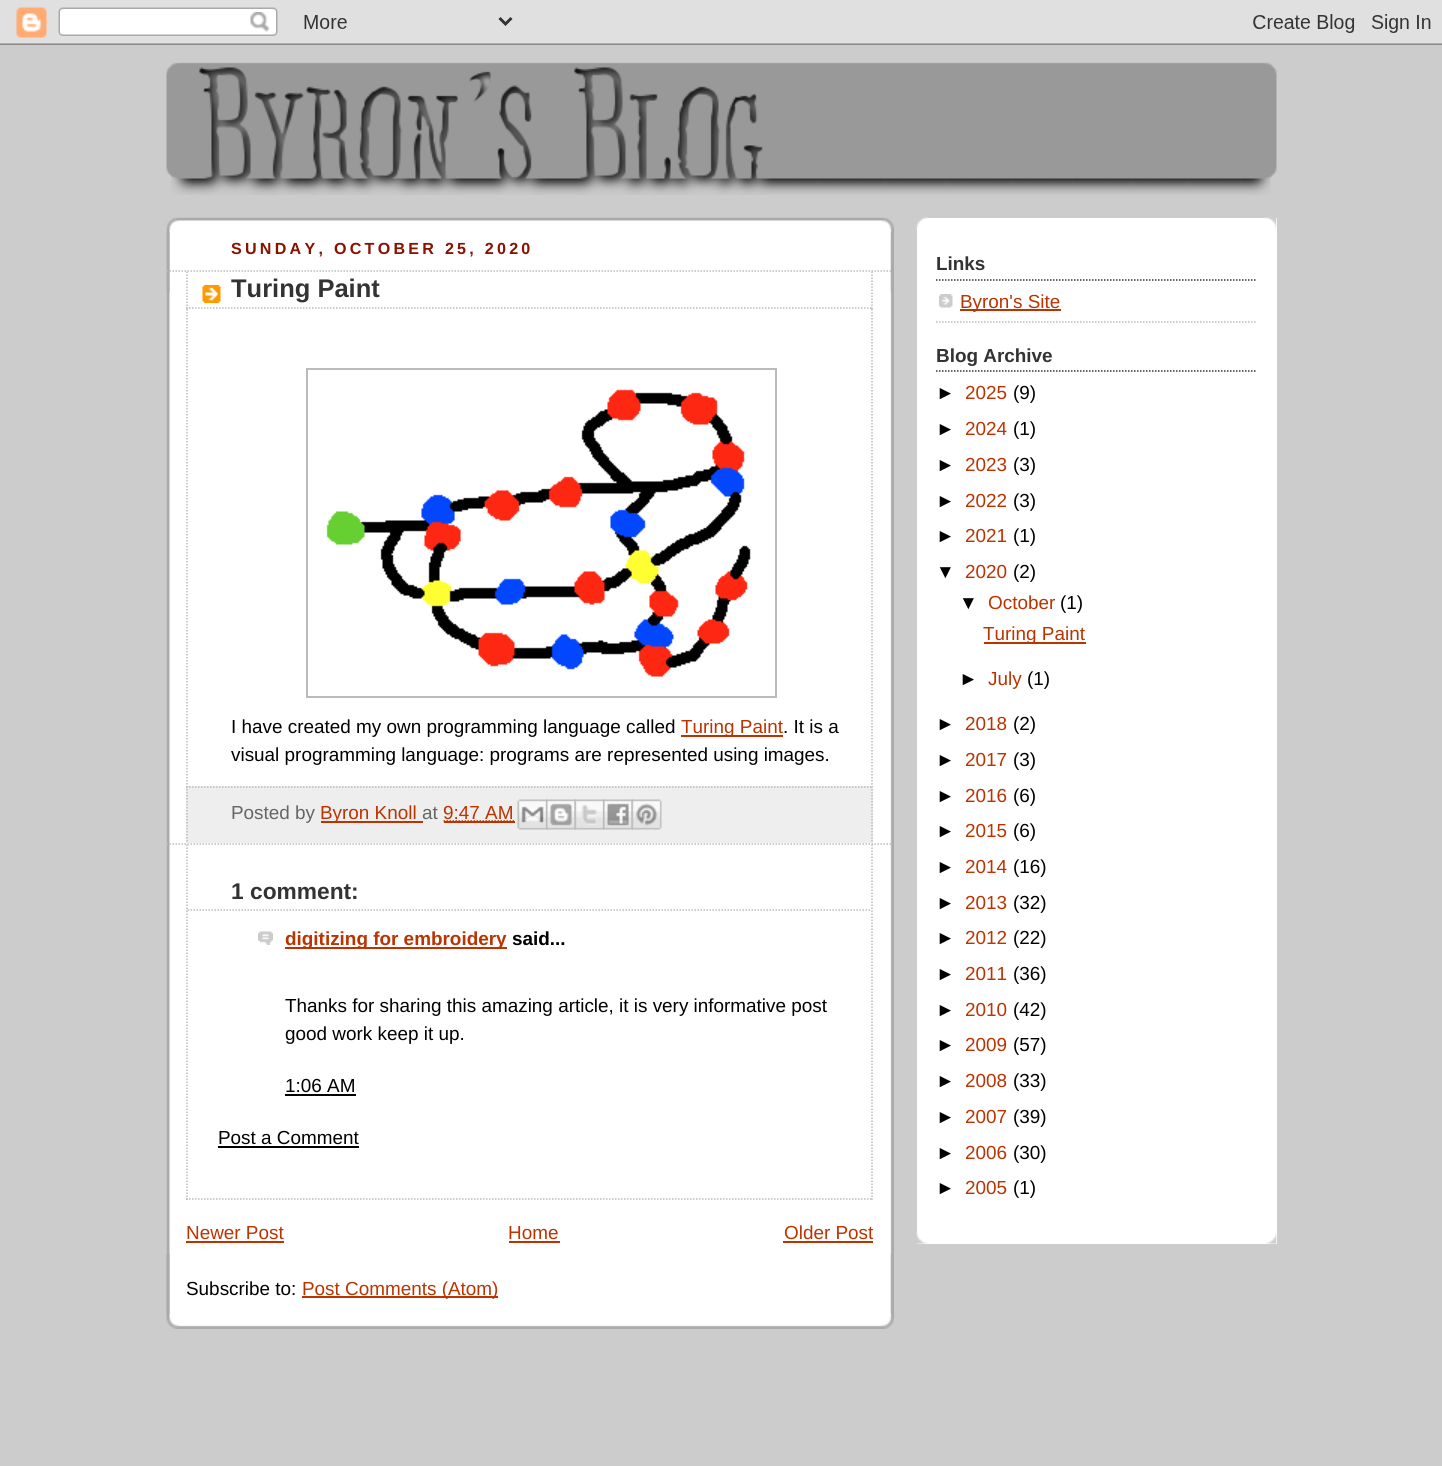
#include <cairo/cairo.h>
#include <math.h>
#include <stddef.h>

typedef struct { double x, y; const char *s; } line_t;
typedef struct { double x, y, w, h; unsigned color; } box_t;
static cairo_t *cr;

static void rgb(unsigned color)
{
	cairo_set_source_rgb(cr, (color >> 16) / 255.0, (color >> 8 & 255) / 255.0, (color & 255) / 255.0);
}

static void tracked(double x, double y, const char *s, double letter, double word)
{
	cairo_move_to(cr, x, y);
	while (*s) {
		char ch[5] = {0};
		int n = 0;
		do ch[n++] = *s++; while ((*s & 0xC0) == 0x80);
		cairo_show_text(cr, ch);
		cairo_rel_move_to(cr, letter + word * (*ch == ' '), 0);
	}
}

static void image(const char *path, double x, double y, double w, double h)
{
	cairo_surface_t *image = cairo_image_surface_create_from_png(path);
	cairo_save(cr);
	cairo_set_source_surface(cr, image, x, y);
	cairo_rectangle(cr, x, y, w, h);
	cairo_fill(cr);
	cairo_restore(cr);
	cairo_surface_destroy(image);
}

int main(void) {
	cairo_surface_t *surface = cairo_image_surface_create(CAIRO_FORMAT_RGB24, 1442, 1466);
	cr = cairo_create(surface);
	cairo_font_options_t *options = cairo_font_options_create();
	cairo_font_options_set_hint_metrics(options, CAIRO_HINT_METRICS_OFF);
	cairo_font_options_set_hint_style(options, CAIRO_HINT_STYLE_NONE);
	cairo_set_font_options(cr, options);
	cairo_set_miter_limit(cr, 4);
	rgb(0xcccccc);
	cairo_paint(cr);
	image("img/1.png", 0, 0, 1442, 45);
	image("img/2.png", 166, 62, 1111, 133);
	rgb(0xffffff);
	cairo_rectangle(cr, 169, 220, 723, 1107);
	cairo_fill(cr);
	image("img/3.png", 166, 1254, 728, 75);
	image("img/4.png", 166, 217, 728, 76);
	image("img/5.png", 166, 232, 728, 1082);
	cairo_new_path(cr);
	cairo_move_to(cr, 166.5, 271);
	cairo_line_to(cr, 892.5, 271);
	rgb(0xbbbbbb);
	cairo_set_line_width(cr, 1.5);
	cairo_set_dash(cr, (double[]){1.5, 1.5}, 2, 0);
	cairo_stroke(cr);
	cairo_new_path(cr);
	cairo_move_to(cr, 166.5, 844);
	cairo_line_to(cr, 892.5, 844);
	cairo_stroke(cr);
	image("img/6.png", 202, 285, 19, 18);
	cairo_new_path(cr);
	cairo_move_to(cr, 872, 271.5);
	cairo_line_to(cr, 872, 309);
	cairo_stroke(cr);
	cairo_new_path(cr);
	cairo_move_to(cr, 186, 308);
	cairo_line_to(cr, 873, 308);
	cairo_stroke(cr);
	cairo_new_path(cr);
	cairo_move_to(cr, 187, 271.5);
	cairo_line_to(cr, 187, 309);
	cairo_stroke(cr);
	cairo_new_path(cr);
	cairo_move_to(cr, 872, 309);
	cairo_line_to(cr, 872, 786);
	cairo_stroke(cr);
	cairo_new_path(cr);
	cairo_move_to(cr, 187, 309);
	cairo_line_to(cr, 187, 786);
	cairo_stroke(cr);
	cairo_rectangle(cr, 307, 369, 469, 328);
	cairo_set_line_width(cr, 2);
	cairo_set_dash(cr, NULL, 0, 0);
	cairo_stroke(cr);
	image("img/7.png", 326, 389, 425, 288);
	rgb(0xbb3300);
	cairo_rectangle(cr, 681, 735, 102, 2);
	cairo_fill(cr);
	rgb(0xeeeeee);
	cairo_rectangle(cr, 186, 786, 687, 57);
	cairo_fill(cr);
	cairo_new_path(cr);
	cairo_move_to(cr, 186, 787);
	cairo_line_to(cr, 873, 787);
	rgb(0xbbbbbb);
	cairo_set_line_width(cr, 1.5);
	cairo_set_dash(cr, (double[]){1.5, 1.5}, 2, 0);
	cairo_stroke(cr);
	cairo_new_path(cr);
	cairo_move_to(cr, 872, 786);
	cairo_line_to(cr, 872, 843);
	cairo_stroke(cr);
	cairo_new_path(cr);
	cairo_move_to(cr, 187, 786);
	cairo_line_to(cr, 187, 843);
	cairo_stroke(cr);
	rgb(0xbb3300);
	cairo_rectangle(cr, 321, 821, 102, 2);
	cairo_fill(cr);
	cairo_new_path(cr);
	cairo_move_to(cr, 443.5, 821);
	cairo_line_to(cr, 514, 821);
	cairo_stroke(cr);
	cairo_rectangle(cr, 444, 821, 71, 2);
	cairo_fill(cr);
	image("img/8.png", 517, 799, 31, 31);
	image("img/9.png", 546, 799, 30, 31);
	image("img/10.png", 574, 799, 31, 31);
	image("img/11.png", 603, 799, 30, 31);
	image("img/12.png", 631, 799, 31, 31);
	cairo_new_path(cr);
	cairo_move_to(cr, 872, 844.5);
	cairo_line_to(cr, 872, 1200);
	rgb(0xbbbbbb);
	cairo_stroke(cr);
	cairo_new_path(cr);
	cairo_move_to(cr, 186, 1199);
	cairo_line_to(cr, 873, 1199);
	cairo_stroke(cr);
	cairo_new_path(cr);
	cairo_move_to(cr, 187, 844.5);
	cairo_line_to(cr, 187, 1200);
	cairo_stroke(cr);
	cairo_new_path(cr);
	cairo_move_to(cr, 187.5, 910);
	cairo_line_to(cr, 871.5, 910);
	cairo_stroke(cr);
	image("img/13.png", 258, 931, 15, 14);
	{
		static const box_t items[] = {
			{285, 947, 222, 2, 0xbb3300},
			{285, 1094, 71, 2, 0x000000},
			{218, 1146, 141, 2, 0x000000},
			{186, 1241, 98, 2, 0xbb3300},
			{509, 1241, 51, 2, 0xbb3300},
			{783, 1241, 90, 2, 0xbb3300},
			{302, 1296, 196, 2, 0xbb3300},
			{917, 218, 360, 1026, 0xffffff},
		};
		for (size_t i = 0; i < sizeof items / sizeof *items; i++) {
			rgb(items[i].color);
			cairo_rectangle(cr, items[i].x, items[i].y, items[i].w, items[i].h);
			cairo_fill(cr);
		}
	}
	image("img/14.png", 916, 217, 361, 13);
	image("img/15.png", 916, 1231, 361, 13);
	cairo_new_path(cr);
	cairo_move_to(cr, 936, 280);
	cairo_line_to(cr, 1257, 280);
	rgb(0x333333);
	cairo_stroke(cr);
	image("img/16.png", 939, 294, 14, 14);
	cairo_new_path(cr);
	cairo_move_to(cr, 936, 322);
	cairo_line_to(cr, 1257, 322);
	rgb(0xbbbbbb);
	cairo_stroke(cr);
	rgb(0xbb3300);
	cairo_rectangle(cr, 960, 309, 101, 2);
	cairo_fill(cr);
	cairo_new_path(cr);
	cairo_move_to(cr, 936, 371);
	cairo_line_to(cr, 1257, 371);
	rgb(0x333333);
	cairo_stroke(cr);
	rgb(0xbb3300);
	cairo_rectangle(cr, 984, 642, 102, 2);
	cairo_fill(cr);
	cairo_select_font_face(cr, "Liberation Sans", CAIRO_FONT_SLANT_NORMAL, CAIRO_FONT_WEIGHT_BOLD);
	cairo_set_font_size(cr, 16.1);
	rgb(0x881100);
	tracked(231, 254, "SUNDAY, OCTOBER 25, 2020", 3.25, 0);
	cairo_set_font_size(cr, 25.5);
	rgb(0x333333);
	cairo_move_to(cr, 231, 297);
	cairo_show_text(cr, "Turing Paint");
	cairo_select_font_face(cr, "Liberation Sans", CAIRO_FONT_SLANT_NORMAL, CAIRO_FONT_WEIGHT_NORMAL);
	cairo_set_font_size(cr, 18.9);
	rgb(0x000000);
	cairo_move_to(cr, 231, 733);
	cairo_show_text(cr, "I have created my own programming language called");
	rgb(0xbb3300);
	cairo_move_to(cr, 681, 733);
	cairo_show_text(cr, "Turing Paint");
	rgb(0x000000);
	cairo_move_to(cr, 783, 733);
	cairo_show_text(cr, ". It is a");
	cairo_move_to(cr, 231, 761);
	cairo_show_text(cr, "visual programming language: programs are represented using images.");
	rgb(0x666666);
	cairo_move_to(cr, 231, 819);
	cairo_show_text(cr, "Posted by");
	rgb(0xbb3300);
	cairo_move_to(cr, 320, 819);
	cairo_show_text(cr, "Byron Knoll");
	rgb(0x666666);
	cairo_move_to(cr, 422, 819);
	cairo_show_text(cr, "at");
	rgb(0xbb3300);
	cairo_move_to(cr, 443, 819);
	cairo_show_text(cr, "9:47 AM");
	cairo_select_font_face(cr, "Liberation Sans", CAIRO_FONT_SLANT_NORMAL, CAIRO_FONT_WEIGHT_BOLD);
	cairo_set_font_size(cr, 22.75);
	rgb(0x333333);
	cairo_move_to(cr, 231, 899);
	cairo_show_text(cr, "1 comment:");
	cairo_set_font_size(cr, 18.9);
	rgb(0xbb3300);
	cairo_move_to(cr, 285, 945);
	cairo_show_text(cr, "digitizing for embroidery");
	rgb(0x000000);
	cairo_move_to(cr, 512, 945);
	cairo_show_text(cr, "said...");
	cairo_select_font_face(cr, "Liberation Sans", CAIRO_FONT_SLANT_NORMAL, CAIRO_FONT_WEIGHT_NORMAL);
	{
		static const line_t items[] = {
			{285, 1012, "Thanks for sharing this amazing article, it is very informative post"},
			{285, 1040, "good work keep it up."},
			{285, 1092, "1:06 AM"},
			{218, 1144, "Post a Comment"},
		};
		for (size_t i = 0; i < sizeof items / sizeof *items; i++) {
			cairo_move_to(cr, items[i].x, items[i].y);
			cairo_show_text(cr, items[i].s);
		}
	}
	rgb(0xbb3300);
	{
		static const line_t items[] = {
			{186, 1239, "Newer Post"},
			{508, 1239, "Home"},
			{784, 1239, "Older Post"},
		};
		for (size_t i = 0; i < sizeof items / sizeof *items; i++) {
			cairo_move_to(cr, items[i].x, items[i].y);
			cairo_show_text(cr, items[i].s);
		}
	}
	rgb(0x000000);
	cairo_move_to(cr, 186, 1295);
	cairo_show_text(cr, "Subscribe to:");
	rgb(0xbb3300);
	cairo_move_to(cr, 302, 1295);
	cairo_show_text(cr, "Post Comments (Atom)");
	cairo_select_font_face(cr, "Liberation Sans", CAIRO_FONT_SLANT_NORMAL, CAIRO_FONT_WEIGHT_BOLD);
	rgb(0x333333);
	cairo_move_to(cr, 936, 270);
	cairo_show_text(cr, "Links");
	cairo_select_font_face(cr, "Liberation Sans", CAIRO_FONT_SLANT_NORMAL, CAIRO_FONT_WEIGHT_NORMAL);
	rgb(0xbb3300);
	cairo_move_to(cr, 960, 308);
	cairo_show_text(cr, "Byron's Site");
	cairo_select_font_face(cr, "Liberation Sans", CAIRO_FONT_SLANT_NORMAL, CAIRO_FONT_WEIGHT_BOLD);
	rgb(0x333333);
	cairo_move_to(cr, 936, 362);
	cairo_show_text(cr, "Blog Archive");
	cairo_select_font_face(cr, "Liberation Sans", CAIRO_FONT_SLANT_NORMAL, CAIRO_FONT_WEIGHT_NORMAL);
	rgb(0x000000);
	cairo_move_to(cr, 936, 399);
	cairo_show_text(cr, "►");
	rgb(0xbb3300);
	cairo_move_to(cr, 965, 399);
	cairo_show_text(cr, "2025");
	rgb(0x000000);
	cairo_move_to(cr, 1013, 399);
	cairo_show_text(cr, "(9)");
	cairo_move_to(cr, 936, 435);
	cairo_show_text(cr, "►");
	rgb(0xbb3300);
	cairo_move_to(cr, 965, 435);
	cairo_show_text(cr, "2024");
	rgb(0x000000);
	cairo_move_to(cr, 1013, 435);
	cairo_show_text(cr, "(1)");
	cairo_move_to(cr, 936, 471);
	cairo_show_text(cr, "►");
	rgb(0xbb3300);
	cairo_move_to(cr, 965, 471);
	cairo_show_text(cr, "2023");
	rgb(0x000000);
	cairo_move_to(cr, 1013, 471);
	cairo_show_text(cr, "(3)");
	cairo_move_to(cr, 936, 507);
	cairo_show_text(cr, "►");
	rgb(0xbb3300);
	cairo_move_to(cr, 965, 507);
	cairo_show_text(cr, "2022");
	rgb(0x000000);
	cairo_move_to(cr, 1013, 507);
	cairo_show_text(cr, "(3)");
	cairo_move_to(cr, 936, 542);
	cairo_show_text(cr, "►");
	rgb(0xbb3300);
	cairo_move_to(cr, 965, 542);
	cairo_show_text(cr, "2021");
	rgb(0x000000);
	cairo_move_to(cr, 1013, 542);
	cairo_show_text(cr, "(1)");
	cairo_move_to(cr, 936, 578);
	cairo_show_text(cr, "▼");
	rgb(0xbb3300);
	cairo_move_to(cr, 965, 578);
	cairo_show_text(cr, "2020");
	rgb(0x000000);
	cairo_move_to(cr, 1013, 578);
	cairo_show_text(cr, "(2)");
	cairo_move_to(cr, 959, 609);
	cairo_show_text(cr, "▼");
	rgb(0xbb3300);
	cairo_move_to(cr, 988, 609);
	cairo_show_text(cr, "October");
	rgb(0x000000);
	cairo_move_to(cr, 1060, 609);
	cairo_show_text(cr, "(1)");
	rgb(0xbb3300);
	cairo_move_to(cr, 983, 640);
	cairo_show_text(cr, "Turing Paint");
	rgb(0x000000);
	cairo_move_to(cr, 959, 685);
	cairo_show_text(cr, "►");
	rgb(0xbb3300);
	cairo_move_to(cr, 988, 685);
	cairo_show_text(cr, "July");
	rgb(0x000000);
	cairo_move_to(cr, 1027, 685);
	cairo_show_text(cr, "(1)");
	cairo_move_to(cr, 936, 730);
	cairo_show_text(cr, "►");
	rgb(0xbb3300);
	cairo_move_to(cr, 965, 730);
	cairo_show_text(cr, "2018");
	rgb(0x000000);
	cairo_move_to(cr, 1013, 730);
	cairo_show_text(cr, "(2)");
	cairo_move_to(cr, 936, 766);
	cairo_show_text(cr, "►");
	rgb(0xbb3300);
	cairo_move_to(cr, 965, 766);
	cairo_show_text(cr, "2017");
	rgb(0x000000);
	cairo_move_to(cr, 1013, 766);
	cairo_show_text(cr, "(3)");
	cairo_move_to(cr, 936, 802);
	cairo_show_text(cr, "►");
	rgb(0xbb3300);
	cairo_move_to(cr, 965, 802);
	cairo_show_text(cr, "2016");
	rgb(0x000000);
	cairo_move_to(cr, 1013, 802);
	cairo_show_text(cr, "(6)");
	cairo_move_to(cr, 936, 837);
	cairo_show_text(cr, "►");
	rgb(0xbb3300);
	cairo_move_to(cr, 965, 837);
	cairo_show_text(cr, "2015");
	rgb(0x000000);
	cairo_move_to(cr, 1013, 837);
	cairo_show_text(cr, "(6)");
	cairo_move_to(cr, 936, 873);
	cairo_show_text(cr, "►");
	rgb(0xbb3300);
	cairo_move_to(cr, 965, 873);
	cairo_show_text(cr, "2014");
	rgb(0x000000);
	cairo_move_to(cr, 1013, 873);
	cairo_show_text(cr, "(16)");
	cairo_move_to(cr, 936, 909);
	cairo_show_text(cr, "►");
	rgb(0xbb3300);
	cairo_move_to(cr, 965, 909);
	cairo_show_text(cr, "2013");
	rgb(0x000000);
	cairo_move_to(cr, 1013, 909);
	cairo_show_text(cr, "(32)");
	cairo_move_to(cr, 936, 944);
	cairo_show_text(cr, "►");
	rgb(0xbb3300);
	cairo_move_to(cr, 965, 944);
	cairo_show_text(cr, "2012");
	rgb(0x000000);
	cairo_move_to(cr, 1013, 944);
	cairo_show_text(cr, "(22)");
	cairo_move_to(cr, 936, 980);
	cairo_show_text(cr, "►");
	rgb(0xbb3300);
	cairo_move_to(cr, 965, 980);
	cairo_show_text(cr, "2011");
	rgb(0x000000);
	cairo_move_to(cr, 1013, 980);
	cairo_show_text(cr, "(36)");
	cairo_move_to(cr, 936, 1016);
	cairo_show_text(cr, "►");
	rgb(0xbb3300);
	cairo_move_to(cr, 965, 1016);
	cairo_show_text(cr, "2010");
	rgb(0x000000);
	cairo_move_to(cr, 1013, 1016);
	cairo_show_text(cr, "(42)");
	cairo_move_to(cr, 936, 1051);
	cairo_show_text(cr, "►");
	rgb(0xbb3300);
	cairo_move_to(cr, 965, 1051);
	cairo_show_text(cr, "2009");
	rgb(0x000000);
	cairo_move_to(cr, 1013, 1051);
	cairo_show_text(cr, "(57)");
	cairo_move_to(cr, 936, 1087);
	cairo_show_text(cr, "►");
	rgb(0xbb3300);
	cairo_move_to(cr, 965, 1087);
	cairo_show_text(cr, "2008");
	rgb(0x000000);
	cairo_move_to(cr, 1013, 1087);
	cairo_show_text(cr, "(33)");
	cairo_move_to(cr, 936, 1123);
	cairo_show_text(cr, "►");
	rgb(0xbb3300);
	cairo_move_to(cr, 965, 1123);
	cairo_show_text(cr, "2007");
	rgb(0x000000);
	cairo_move_to(cr, 1013, 1123);
	cairo_show_text(cr, "(39)");
	cairo_move_to(cr, 936, 1159);
	cairo_show_text(cr, "►");
	rgb(0xbb3300);
	cairo_move_to(cr, 965, 1159);
	cairo_show_text(cr, "2006");
	rgb(0x000000);
	cairo_move_to(cr, 1013, 1159);
	cairo_show_text(cr, "(30)");
	cairo_move_to(cr, 936, 1194);
	cairo_show_text(cr, "►");
	rgb(0xbb3300);
	cairo_move_to(cr, 965, 1194);
	cairo_show_text(cr, "2005");
	rgb(0x000000);
	cairo_move_to(cr, 1013, 1194);
	cairo_show_text(cr, "(1)");
	cairo_surface_write_to_png(surface, "page.png");
	cairo_font_options_destroy(options);
	cairo_destroy(cr);
	cairo_surface_destroy(surface);
	return 0;
}
